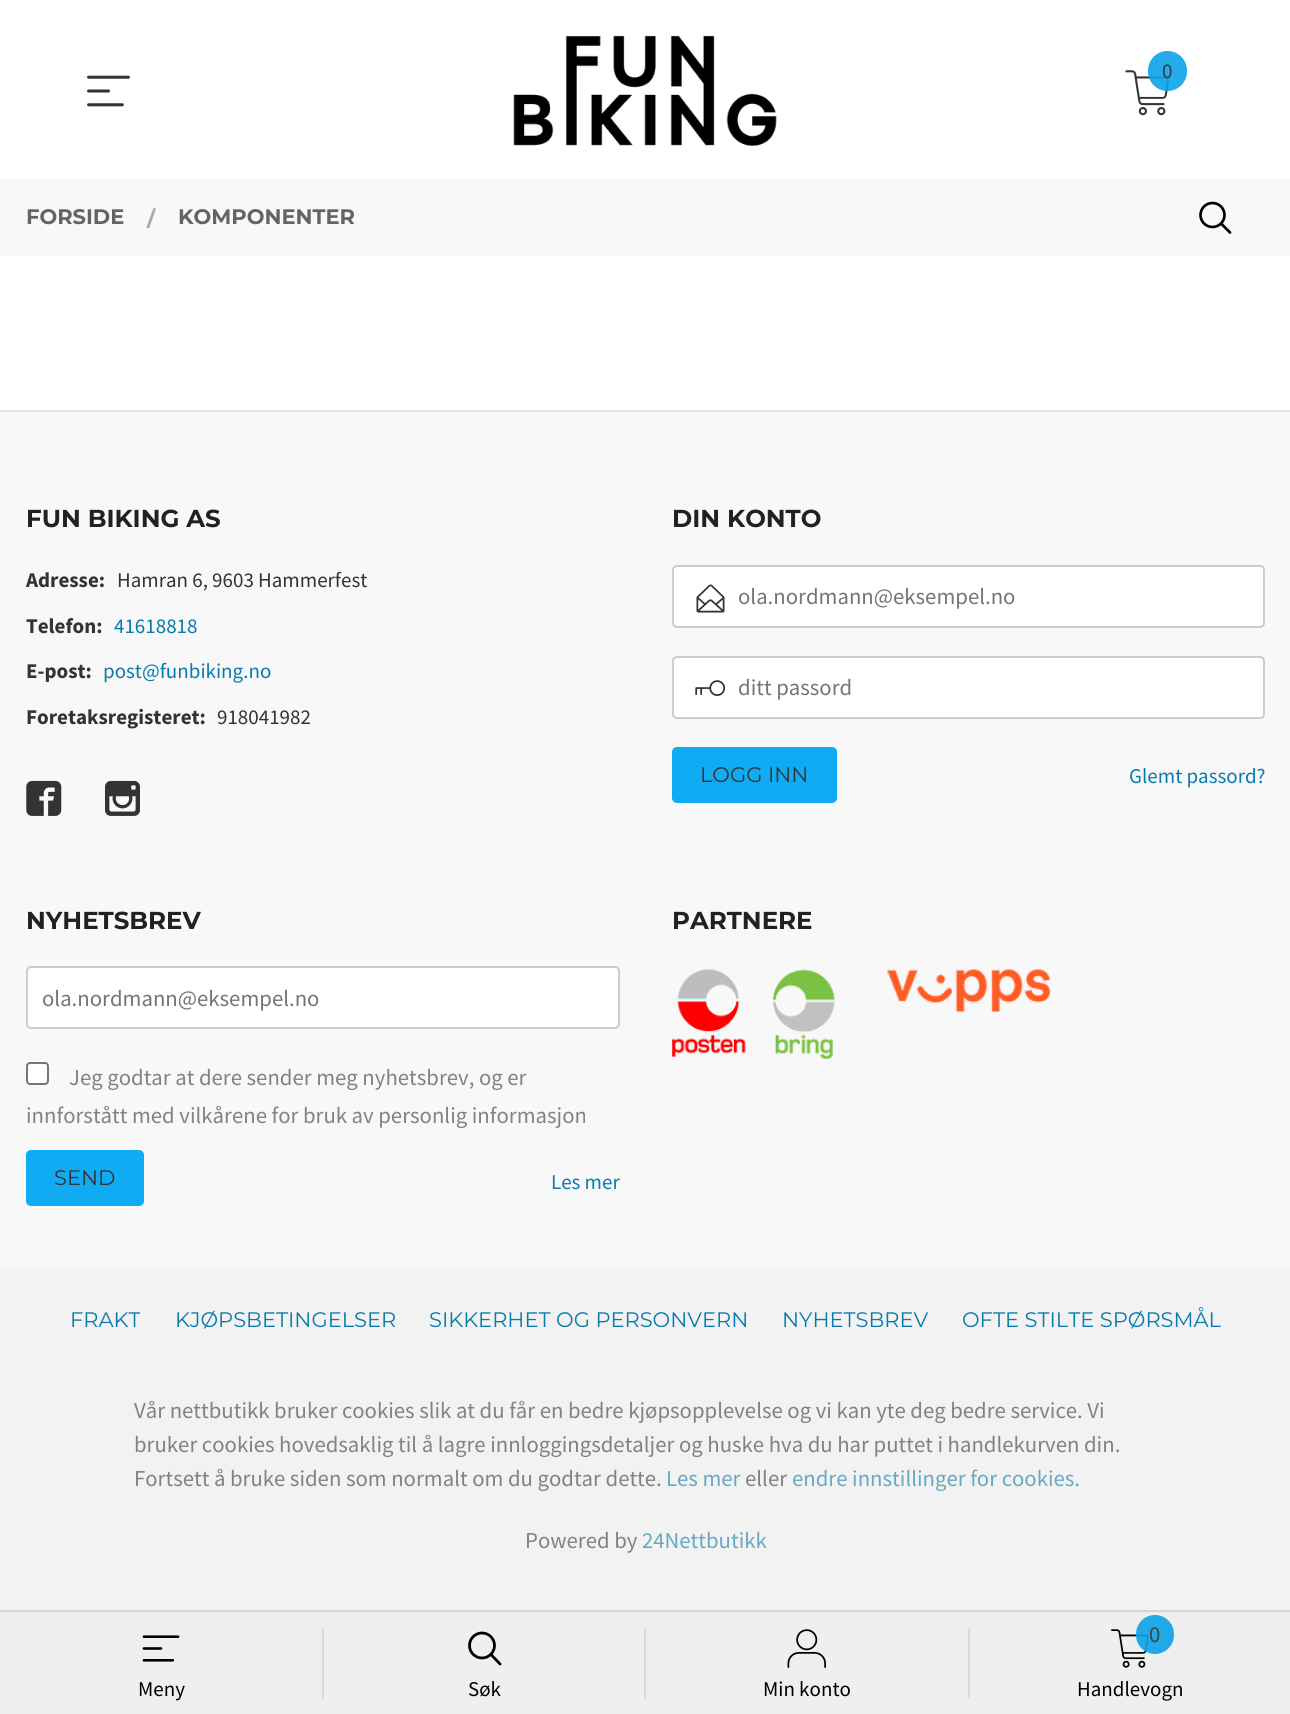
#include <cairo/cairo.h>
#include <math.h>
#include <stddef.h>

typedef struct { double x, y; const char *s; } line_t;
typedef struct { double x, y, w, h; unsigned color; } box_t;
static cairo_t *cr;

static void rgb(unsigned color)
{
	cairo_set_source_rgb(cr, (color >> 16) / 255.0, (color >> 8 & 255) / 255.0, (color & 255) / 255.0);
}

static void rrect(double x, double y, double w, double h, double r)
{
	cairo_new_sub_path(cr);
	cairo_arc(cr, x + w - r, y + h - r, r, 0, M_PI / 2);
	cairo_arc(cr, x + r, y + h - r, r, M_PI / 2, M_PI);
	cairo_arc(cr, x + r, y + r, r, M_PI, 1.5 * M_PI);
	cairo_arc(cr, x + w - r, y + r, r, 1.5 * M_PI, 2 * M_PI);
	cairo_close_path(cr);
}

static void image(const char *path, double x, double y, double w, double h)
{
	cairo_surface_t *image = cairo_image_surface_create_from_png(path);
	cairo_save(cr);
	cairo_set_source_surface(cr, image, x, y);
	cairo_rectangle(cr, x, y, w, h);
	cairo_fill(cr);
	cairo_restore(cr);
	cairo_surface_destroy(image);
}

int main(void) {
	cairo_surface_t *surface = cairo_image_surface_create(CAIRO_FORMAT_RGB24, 1290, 1714);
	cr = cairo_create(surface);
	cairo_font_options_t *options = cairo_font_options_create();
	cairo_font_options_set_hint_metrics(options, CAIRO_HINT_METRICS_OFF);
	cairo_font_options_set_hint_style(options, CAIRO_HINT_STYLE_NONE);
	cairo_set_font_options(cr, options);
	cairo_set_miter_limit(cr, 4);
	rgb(0xf8f8f8);
	cairo_paint(cr);
	rgb(0xffffff);
	cairo_rectangle(cr, 0, 0, 1290, 179);
	cairo_fill(cr);
	image("img/1.png", 87, 75, 43, 32);
	image("img/2.png", 513, 35, 264, 112);
	image("img/3.png", 1125, 70, 44, 46);
	cairo_set_source_rgba(cr, 0.047, 0.639, 0.906, 0.9);
	rrect(1148, 51, 39, 40, 19.5);
	cairo_fill(cr);
	cairo_arc(cr, 1212.5, 215, 12, 0, 2 * M_PI);
	rgb(0x000000);
	cairo_set_line_width(cr, 2.7);
	cairo_stroke(cr);
	cairo_new_path(cr);
	cairo_move_to(cr, 1230, 232.5);
	cairo_line_to(cr, 1221.5, 224);
	cairo_set_line_cap(cr, CAIRO_LINE_CAP_ROUND);
	cairo_stroke(cr);
	rgb(0xffffff);
	cairo_rectangle(cr, 0, 256, 1290, 154);
	cairo_fill(cr);
	rgb(0xe4e4e4);
	cairo_rectangle(cr, 0, 410, 1290, 2);
	cairo_fill(cr);
	image("img/4.png", 26, 780, 36, 36);
	image("img/5.png", 105, 780, 35, 36);
	rgb(0xffffff);
	rrect(673, 566, 591, 61, 4);
	cairo_fill_preserve(cr);
	rgb(0xcccccc);
	cairo_set_line_width(cr, 2);
	cairo_set_line_cap(cr, CAIRO_LINE_CAP_BUTT);
	cairo_stroke(cr);
	image("img/6.png", 696, 584, 29, 29);
	rgb(0xffffff);
	rrect(673, 657, 591, 61, 4);
	cairo_fill_preserve(cr);
	rgb(0xcccccc);
	cairo_stroke(cr);
	image("img/7.png", 695, 680, 31, 16);
	rgb(0x0facf3);
	rrect(672, 747, 165, 56, 5);
	cairo_fill(cr);
	rgb(0xffffff);
	rrect(27, 967, 592, 61, 4);
	cairo_fill_preserve(cr);
	rgb(0xcccccc);
	cairo_stroke(cr);
	rgb(0xffffff);
	rrect(27, 1063, 21, 21, 3);
	cairo_fill_preserve(cr);
	rgb(0x767676);
	cairo_stroke(cr);
	rgb(0x0facf3);
	rrect(26, 1150, 118, 56, 5);
	cairo_fill(cr);
	image("img/8.png", 672, 969, 163, 90);
	image("img/9.png", 887, 969, 163, 43);
	{
		static const box_t items[] = {
			{0, 1267, 1290, 343, 0xf2f2f2},
			{0, 1612, 1290, 102, 0xefefef},
			{0, 1610, 1290, 2, 0xd5d5d5},
		};
		for (size_t i = 0; i < sizeof items / sizeof *items; i++) {
			rgb(items[i].color);
			cairo_rectangle(cr, items[i].x, items[i].y, items[i].w, items[i].h);
			cairo_fill(cr);
		}
	}
	image("img/10.png", 142, 1635, 38, 27);
	rgb(0xdbdbdb);
	cairo_rectangle(cr, 322, 1628, 2, 71);
	cairo_fill(cr);
	cairo_arc(cr, 482, 1645.5, 12.5, 0, 2 * M_PI);
	rgb(0x000000);
	cairo_set_line_width(cr, 2.8);
	cairo_stroke(cr);
	cairo_new_path(cr);
	cairo_move_to(cr, 500, 1664);
	cairo_line_to(cr, 491, 1654.5);
	cairo_set_line_cap(cr, CAIRO_LINE_CAP_ROUND);
	cairo_stroke(cr);
	rgb(0xdbdbdb);
	cairo_rectangle(cr, 644, 1628, 2, 71);
	cairo_fill(cr);
	image("img/11.png", 787, 1629, 39, 39);
	cairo_rectangle(cr, 968, 1628, 2, 71);
	cairo_fill(cr);
	image("img/12.png", 1111, 1629, 38, 39);
	cairo_set_source_rgba(cr, 0.047, 0.639, 0.906, 0.9);
	rrect(1136, 1615, 38, 39, 19);
	cairo_fill(cr);
	cairo_select_font_face(cr, "Source Sans Pro", CAIRO_FONT_SLANT_NORMAL, CAIRO_FONT_WEIGHT_NORMAL);
	cairo_set_font_size(cr, 21);
	rgb(0x2f3c42);
	cairo_move_to(cr, 1162, 78);
	cairo_show_text(cr, "0");
	cairo_select_font_face(cr, "Montserrat", CAIRO_FONT_SLANT_NORMAL, CAIRO_FONT_WEIGHT_BOLD);
	rgb(0x646464);
	cairo_move_to(cr, 26, 224);
	cairo_show_text(cr, "FORSIDE");
	rgb(0xaaaaaa);
	cairo_move_to(cr, 147, 226);
	cairo_show_text(cr, "/");
	rgb(0x646464);
	cairo_move_to(cr, 178, 224);
	cairo_show_text(cr, "KOMPONENTER");
	cairo_set_font_size(cr, 24.5);
	rgb(0x212121);
	cairo_move_to(cr, 26, 527);
	cairo_show_text(cr, "FUN BIKING AS");
	cairo_select_font_face(cr, "Source Sans Pro", CAIRO_FONT_SLANT_NORMAL, CAIRO_FONT_WEIGHT_BOLD);
	cairo_set_font_size(cr, 21);
	rgb(0x333333);
	cairo_move_to(cr, 26, 587);
	cairo_show_text(cr, "Adresse:");
	cairo_select_font_face(cr, "Source Sans Pro", CAIRO_FONT_SLANT_NORMAL, CAIRO_FONT_WEIGHT_NORMAL);
	cairo_move_to(cr, 117, 587);
	cairo_show_text(cr, "Hamran 6, 9603 Hammerfest");
	cairo_select_font_face(cr, "Source Sans Pro", CAIRO_FONT_SLANT_NORMAL, CAIRO_FONT_WEIGHT_BOLD);
	cairo_move_to(cr, 26, 633);
	cairo_show_text(cr, "Telefon:");
	cairo_select_font_face(cr, "Source Sans Pro", CAIRO_FONT_SLANT_NORMAL, CAIRO_FONT_WEIGHT_NORMAL);
	rgb(0x097aad);
	cairo_move_to(cr, 114, 633);
	cairo_show_text(cr, "41618818");
	cairo_select_font_face(cr, "Source Sans Pro", CAIRO_FONT_SLANT_NORMAL, CAIRO_FONT_WEIGHT_BOLD);
	rgb(0x333333);
	cairo_move_to(cr, 26, 678);
	cairo_show_text(cr, "E-post:");
	cairo_select_font_face(cr, "Source Sans Pro", CAIRO_FONT_SLANT_NORMAL, CAIRO_FONT_WEIGHT_NORMAL);
	rgb(0x097aad);
	cairo_move_to(cr, 103, 678);
	cairo_show_text(cr, "post@funbiking.no");
	cairo_select_font_face(cr, "Source Sans Pro", CAIRO_FONT_SLANT_NORMAL, CAIRO_FONT_WEIGHT_BOLD);
	rgb(0x333333);
	cairo_move_to(cr, 26, 724);
	cairo_show_text(cr, "Foretaksregisteret:");
	cairo_select_font_face(cr, "Source Sans Pro", CAIRO_FONT_SLANT_NORMAL, CAIRO_FONT_WEIGHT_NORMAL);
	cairo_move_to(cr, 217, 724);
	cairo_show_text(cr, "918041982");
	cairo_select_font_face(cr, "Montserrat", CAIRO_FONT_SLANT_NORMAL, CAIRO_FONT_WEIGHT_BOLD);
	cairo_set_font_size(cr, 24.5);
	rgb(0x212121);
	cairo_move_to(cr, 672, 527);
	cairo_show_text(cr, "DIN KONTO");
	cairo_select_font_face(cr, "Source Sans Pro", CAIRO_FONT_SLANT_NORMAL, CAIRO_FONT_WEIGHT_NORMAL);
	cairo_set_font_size(cr, 22.75);
	rgb(0x757575);
	cairo_move_to(cr, 738, 604);
	cairo_show_text(cr, "ola.nordmann@eksempel.no");
	cairo_move_to(cr, 738, 695);
	cairo_show_text(cr, "ditt passord");
	cairo_select_font_face(cr, "Montserrat", CAIRO_FONT_SLANT_NORMAL, CAIRO_FONT_WEIGHT_NORMAL);
	cairo_set_font_size(cr, 21);
	rgb(0x333333);
	cairo_move_to(cr, 700, 782);
	cairo_show_text(cr, "LOGG INN");
	cairo_select_font_face(cr, "Source Sans Pro", CAIRO_FONT_SLANT_NORMAL, CAIRO_FONT_WEIGHT_NORMAL);
	rgb(0x097aad);
	cairo_move_to(cr, 1129, 783);
	cairo_show_text(cr, "Glemt passord?");
	cairo_select_font_face(cr, "Montserrat", CAIRO_FONT_SLANT_NORMAL, CAIRO_FONT_WEIGHT_BOLD);
	cairo_set_font_size(cr, 24.5);
	rgb(0x212121);
	cairo_move_to(cr, 26, 929);
	cairo_show_text(cr, "NYHETSBREV");
	cairo_select_font_face(cr, "Source Sans Pro", CAIRO_FONT_SLANT_NORMAL, CAIRO_FONT_WEIGHT_NORMAL);
	cairo_set_font_size(cr, 22.75);
	rgb(0x757575);
	cairo_move_to(cr, 42, 1006);
	cairo_show_text(cr, "ola.nordmann@eksempel.no");
	rgb(0x828282);
	cairo_move_to(cr, 69, 1085);
	cairo_show_text(cr, "Jeg godtar at dere sender meg nyhetsbrev, og er");
	cairo_move_to(cr, 26, 1123);
	cairo_show_text(cr, "innforstått med vilkårene for bruk av personlig informasjon");
	cairo_select_font_face(cr, "Montserrat", CAIRO_FONT_SLANT_NORMAL, CAIRO_FONT_WEIGHT_NORMAL);
	cairo_set_font_size(cr, 21);
	rgb(0x333333);
	cairo_move_to(cr, 54, 1185);
	cairo_show_text(cr, "SEND");
	cairo_select_font_face(cr, "Source Sans Pro", CAIRO_FONT_SLANT_NORMAL, CAIRO_FONT_WEIGHT_NORMAL);
	rgb(0x097aad);
	cairo_move_to(cr, 551, 1189);
	cairo_show_text(cr, "Les mer");
	cairo_select_font_face(cr, "Montserrat", CAIRO_FONT_SLANT_NORMAL, CAIRO_FONT_WEIGHT_BOLD);
	cairo_set_font_size(cr, 24.5);
	rgb(0x212121);
	cairo_move_to(cr, 672, 929);
	cairo_show_text(cr, "PARTNERE");
	cairo_select_font_face(cr, "Montserrat", CAIRO_FONT_SLANT_NORMAL, CAIRO_FONT_WEIGHT_NORMAL);
	cairo_set_font_size(cr, 21);
	rgb(0x097aad);
	{
		static const line_t items[] = {
			{70, 1327, "FRAKT"},
			{175, 1327, "KJØPSBETINGELSER"},
			{429, 1327, "SIKKERHET OG PERSONVERN"},
			{782, 1327, "NYHETSBREV"},
			{962, 1327, "OFTE STILTE SPØRSMÅL"},
		};
		for (size_t i = 0; i < sizeof items / sizeof *items; i++) {
			cairo_move_to(cr, items[i].x, items[i].y);
			cairo_show_text(cr, items[i].s);
		}
	}
	cairo_select_font_face(cr, "Source Sans Pro", CAIRO_FONT_SLANT_NORMAL, CAIRO_FONT_WEIGHT_NORMAL);
	cairo_set_font_size(cr, 22.75);
	rgb(0x828282);
	{
		static const line_t items[] = {
			{134, 1418, "Vår nettbutikk bruker cookies slik at du får en bedre kjøpsopplevelse og vi kan yte deg bedre service. Vi"},
			{134, 1452, "bruker cookies hovedsaklig til å lagre innloggingsdetaljer og huske hva du har puttet i handlekurven din."},
			{134, 1486, "Fortsett å bruke siden som normalt om du godtar dette."},
		};
		for (size_t i = 0; i < sizeof items / sizeof *items; i++) {
			cairo_move_to(cr, items[i].x, items[i].y);
			cairo_show_text(cr, items[i].s);
		}
	}
	rgb(0x66a8c6);
	cairo_move_to(cr, 666, 1486);
	cairo_show_text(cr, "Les mer");
	rgb(0x828282);
	cairo_move_to(cr, 745, 1486);
	cairo_show_text(cr, "eller");
	rgb(0x66a8c6);
	cairo_move_to(cr, 792, 1486);
	cairo_show_text(cr, "endre innstillinger for cookies.");
	rgb(0x828282);
	cairo_move_to(cr, 525, 1548);
	cairo_show_text(cr, "Powered by");
	rgb(0x66a8c6);
	cairo_move_to(cr, 642, 1548);
	cairo_show_text(cr, "24Nettbutikk");
	cairo_set_font_size(cr, 21);
	rgb(0x000000);
	{
		static const line_t items[] = {
			{138, 1696, "Meny"},
			{468, 1696, "Søk"},
			{763, 1696, "Min konto"},
		};
		for (size_t i = 0; i < sizeof items / sizeof *items; i++) {
			cairo_move_to(cr, items[i].x, items[i].y);
			cairo_show_text(cr, items[i].s);
		}
	}
	cairo_set_font_size(cr, 22.75);
	rgb(0x434343);
	cairo_move_to(cr, 1149, 1642);
	cairo_show_text(cr, "0");
	cairo_set_font_size(cr, 21);
	rgb(0x000000);
	cairo_move_to(cr, 1077, 1696);
	cairo_show_text(cr, "Handlevogn");
	cairo_surface_write_to_png(surface, "page.png");
	cairo_font_options_destroy(options);
	cairo_destroy(cr);
	cairo_surface_destroy(surface);
	return 0;
}
